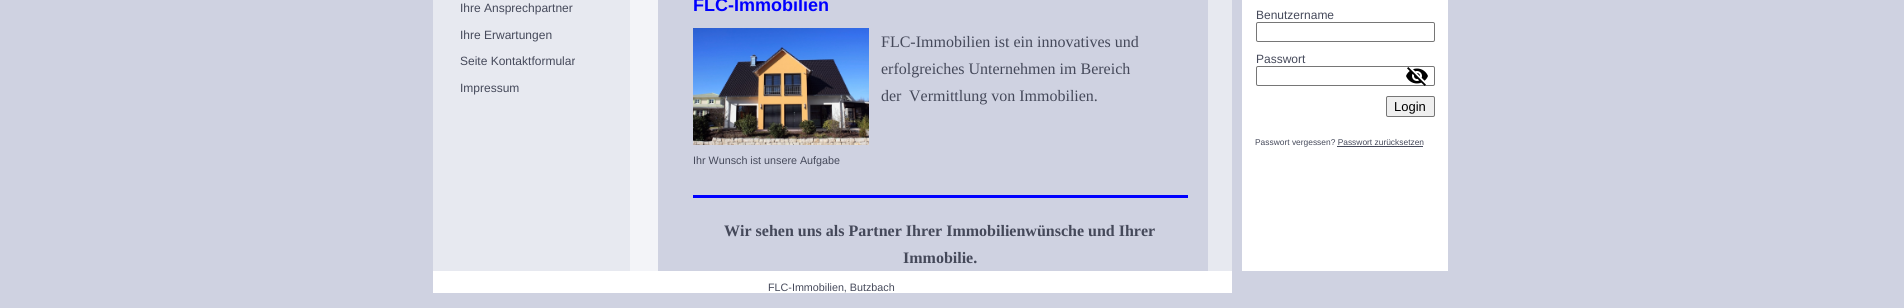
#include <cairo/cairo.h>
#include <math.h>
#include <stddef.h>

typedef struct { double x, y; const char *s; } line_t;
typedef struct { double x, y, w, h; unsigned color; } box_t;
static cairo_t *cr;

static void rgb(unsigned color)
{
	cairo_set_source_rgb(cr, (color >> 16) / 255.0, (color >> 8 & 255) / 255.0, (color & 255) / 255.0);
}

static void rrect(double x, double y, double w, double h, double r)
{
	cairo_new_sub_path(cr);
	cairo_arc(cr, x + w - r, y + h - r, r, 0, M_PI / 2);
	cairo_arc(cr, x + r, y + h - r, r, M_PI / 2, M_PI);
	cairo_arc(cr, x + r, y + r, r, M_PI, 1.5 * M_PI);
	cairo_arc(cr, x + w - r, y + r, r, 1.5 * M_PI, 2 * M_PI);
	cairo_close_path(cr);
}

static void image(const char *path, double x, double y, double w, double h)
{
	cairo_surface_t *image = cairo_image_surface_create_from_png(path);
	cairo_save(cr);
	cairo_set_source_surface(cr, image, x, y);
	cairo_rectangle(cr, x, y, w, h);
	cairo_fill(cr);
	cairo_restore(cr);
	cairo_surface_destroy(image);
}

int main(void) {
	cairo_surface_t *surface = cairo_image_surface_create(CAIRO_FORMAT_RGB24, 1904, 308);
	cr = cairo_create(surface);
	cairo_font_options_t *options = cairo_font_options_create();
	cairo_font_options_set_hint_metrics(options, CAIRO_HINT_METRICS_OFF);
	cairo_font_options_set_hint_style(options, CAIRO_HINT_STYLE_NONE);
	cairo_set_font_options(cr, options);
	cairo_set_miter_limit(cr, 4);
	rgb(0xcfd2e1);
	cairo_paint(cr);
	rgb(0xe7e9f0);
	cairo_rectangle(cr, 433, 0, 197, 271);
	cairo_fill(cr);
	rgb(0xf3f4f8);
	cairo_rectangle(cr, 630, 0, 28, 271);
	cairo_fill(cr);
	image("img/1.png", 693, 28, 176, 117);
	{
		static const box_t items[] = {
			{693, 195, 495, 3, 0x0000ff},
			{1208, 0, 24, 271, 0xe7e9f0},
			{1242, 0, 206, 271, 0xffffff},
		};
		for (size_t i = 0; i < sizeof items / sizeof *items; i++) {
			rgb(items[i].color);
			cairo_rectangle(cr, items[i].x, items[i].y, items[i].w, items[i].h);
			cairo_fill(cr);
		}
	}
	rrect(1256.5, 22.5, 178, 19, 1.5);
	rgb(0x767676);
	cairo_set_line_width(cr, 1);
	cairo_stroke(cr);
	rrect(1256.5, 66.5, 178, 19, 1.5);
	cairo_stroke(cr);
	image("img/2.png", 1406, 67, 22, 19);
	rgb(0xefefef);
	rrect(1386.5, 96.5, 48, 20, 1.5);
	cairo_fill_preserve(cr);
	rgb(0x767676);
	cairo_stroke(cr);
	rgb(0x45495a);
	cairo_rectangle(cr, 1337, 146, 86, 1);
	cairo_fill(cr);
	rgb(0xffffff);
	cairo_rectangle(cr, 433, 271, 799, 22);
	cairo_fill(cr);
	cairo_select_font_face(cr, "Liberation Sans", CAIRO_FONT_SLANT_NORMAL, CAIRO_FONT_WEIGHT_NORMAL);
	cairo_set_font_size(cr, 12);
	rgb(0x45495a);
	{
		static const line_t items[] = {
			{460, 12, "Ihre Ansprechpartner"},
			{460, 39, "Ihre Erwartungen"},
			{460, 65, "Seite Kontaktformular"},
			{460, 92, "Impressum"},
		};
		for (size_t i = 0; i < sizeof items / sizeof *items; i++) {
			cairo_move_to(cr, items[i].x, items[i].y);
			cairo_show_text(cr, items[i].s);
		}
	}
	cairo_select_font_face(cr, "Liberation Sans", CAIRO_FONT_SLANT_NORMAL, CAIRO_FONT_WEIGHT_BOLD);
	cairo_set_font_size(cr, 18);
	rgb(0x0000ff);
	cairo_move_to(cr, 693, 11);
	cairo_show_text(cr, "FLC-Immobilien");
	cairo_select_font_face(cr, "Liberation Serif", CAIRO_FONT_SLANT_NORMAL, CAIRO_FONT_WEIGHT_NORMAL);
	cairo_set_font_size(cr, 16);
	rgb(0x45495a);
	{
		static const line_t items[] = {
			{881, 47, "FLC-Immobilien ist ein innovatives und"},
			{881, 74, "erfolgreiches Unternehmen im Bereich"},
			{881, 101, "der"},
			{909, 101, "Vermittlung von Immobilien."},
		};
		for (size_t i = 0; i < sizeof items / sizeof *items; i++) {
			cairo_move_to(cr, items[i].x, items[i].y);
			cairo_show_text(cr, items[i].s);
		}
	}
	cairo_select_font_face(cr, "Liberation Sans", CAIRO_FONT_SLANT_NORMAL, CAIRO_FONT_WEIGHT_NORMAL);
	cairo_set_font_size(cr, 10.75);
	cairo_move_to(cr, 693, 164);
	cairo_show_text(cr, "Ihr Wunsch ist unsere Aufgabe");
	cairo_select_font_face(cr, "Liberation Serif", CAIRO_FONT_SLANT_NORMAL, CAIRO_FONT_WEIGHT_BOLD);
	cairo_set_font_size(cr, 16);
	cairo_move_to(cr, 724, 236);
	cairo_show_text(cr, "Wir sehen uns als Partner Ihrer Immobilienwünsche und Ihrer");
	cairo_move_to(cr, 903, 263);
	cairo_show_text(cr, "Immobilie.");
	cairo_select_font_face(cr, "Liberation Sans", CAIRO_FONT_SLANT_NORMAL, CAIRO_FONT_WEIGHT_NORMAL);
	cairo_set_font_size(cr, 12);
	cairo_move_to(cr, 1256, 19);
	cairo_show_text(cr, "Benutzername");
	cairo_move_to(cr, 1256, 63);
	cairo_show_text(cr, "Passwort");
	cairo_set_font_size(cr, 13);
	rgb(0x000000);
	cairo_move_to(cr, 1394, 111);
	cairo_show_text(cr, "Login");
	cairo_set_font_size(cr, 8.4);
	rgb(0x45495a);
	cairo_move_to(cr, 1255, 145);
	cairo_show_text(cr, "Passwort vergessen? Passwort zurücksetzen");
	cairo_set_font_size(cr, 10.75);
	cairo_move_to(cr, 768, 291);
	cairo_show_text(cr, "FLC-Immobilien, Butzbach");
	cairo_surface_write_to_png(surface, "page.png");
	cairo_font_options_destroy(options);
	cairo_destroy(cr);
	cairo_surface_destroy(surface);
	return 0;
}
